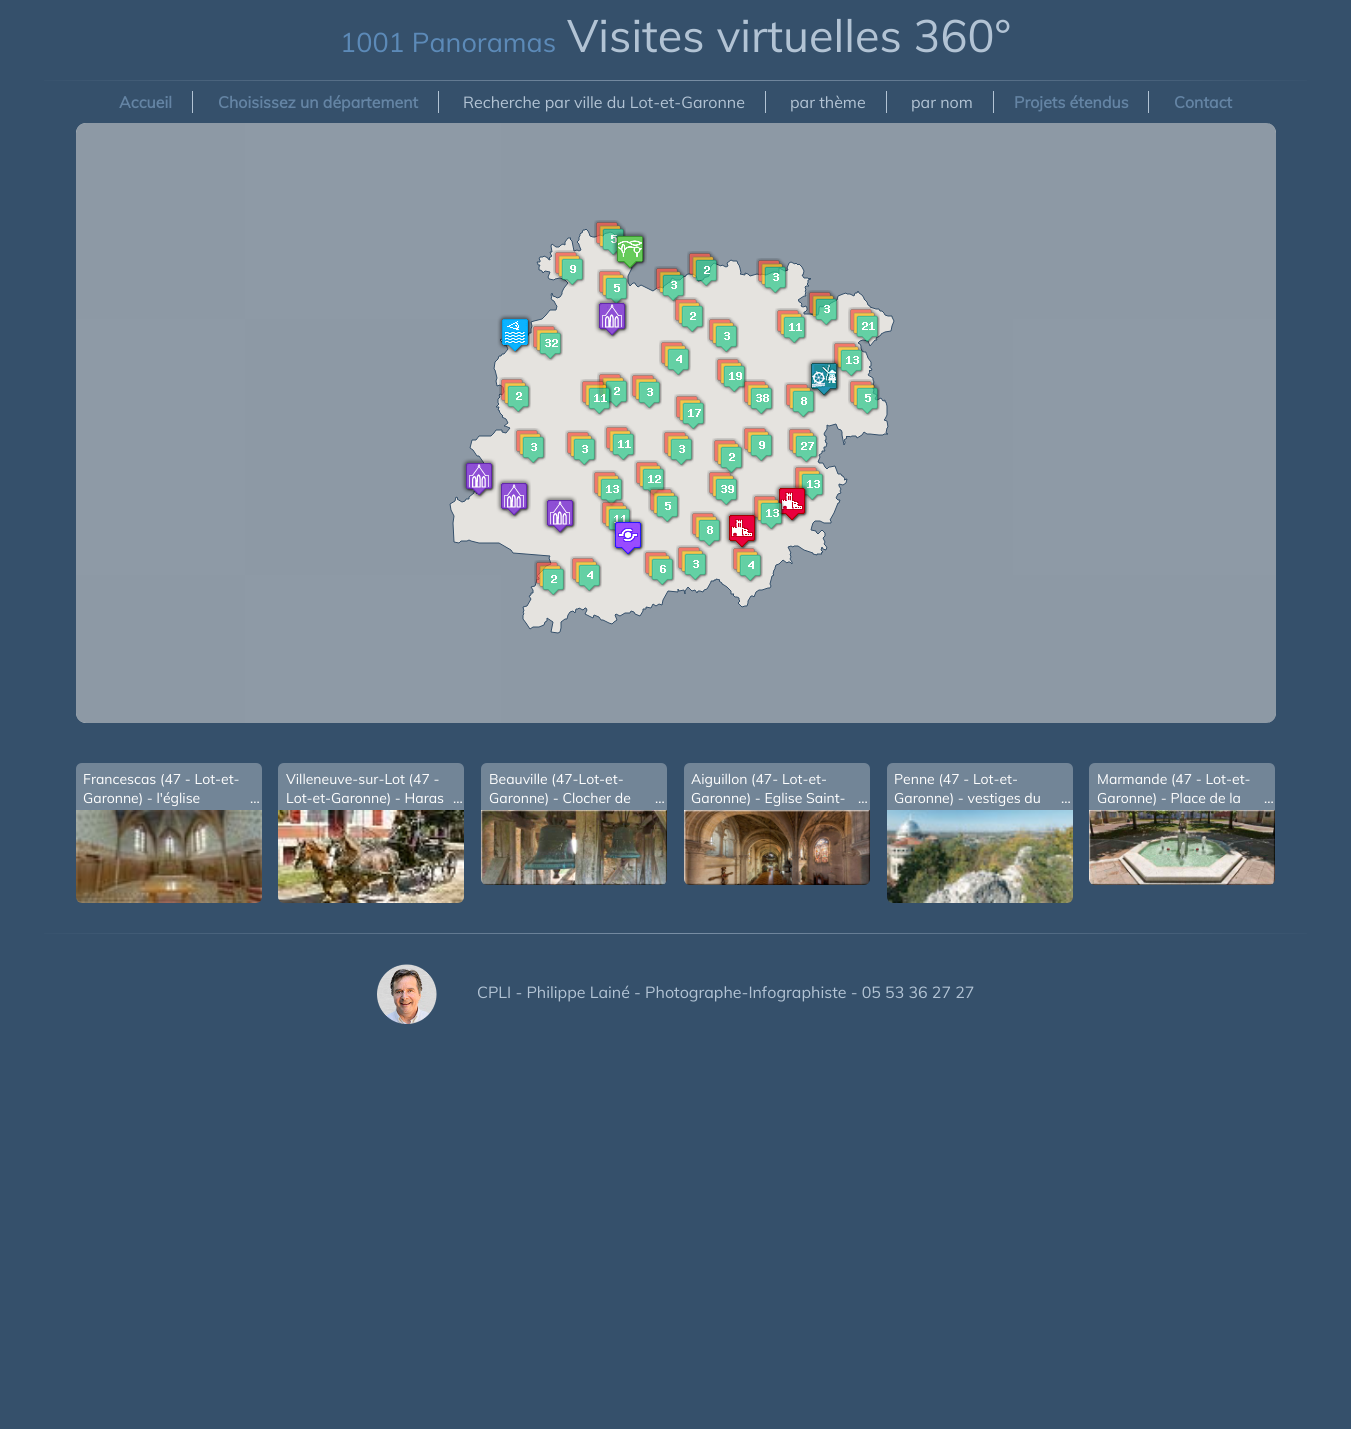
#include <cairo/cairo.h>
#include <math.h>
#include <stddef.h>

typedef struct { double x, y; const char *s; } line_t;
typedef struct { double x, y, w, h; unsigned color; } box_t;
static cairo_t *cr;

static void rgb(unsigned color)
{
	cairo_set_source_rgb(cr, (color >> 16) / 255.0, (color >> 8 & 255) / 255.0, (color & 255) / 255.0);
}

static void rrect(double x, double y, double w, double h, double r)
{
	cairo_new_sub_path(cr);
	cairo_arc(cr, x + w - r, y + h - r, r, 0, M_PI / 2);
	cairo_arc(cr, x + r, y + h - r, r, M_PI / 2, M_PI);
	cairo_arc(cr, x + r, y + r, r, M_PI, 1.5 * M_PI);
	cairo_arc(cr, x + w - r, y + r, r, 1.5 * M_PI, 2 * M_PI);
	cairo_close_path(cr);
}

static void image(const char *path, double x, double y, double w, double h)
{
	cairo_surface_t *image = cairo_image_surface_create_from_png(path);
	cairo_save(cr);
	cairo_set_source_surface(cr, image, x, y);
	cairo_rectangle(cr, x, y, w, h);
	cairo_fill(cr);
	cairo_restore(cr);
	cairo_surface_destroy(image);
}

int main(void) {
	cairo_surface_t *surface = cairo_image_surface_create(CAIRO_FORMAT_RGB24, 1351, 1429);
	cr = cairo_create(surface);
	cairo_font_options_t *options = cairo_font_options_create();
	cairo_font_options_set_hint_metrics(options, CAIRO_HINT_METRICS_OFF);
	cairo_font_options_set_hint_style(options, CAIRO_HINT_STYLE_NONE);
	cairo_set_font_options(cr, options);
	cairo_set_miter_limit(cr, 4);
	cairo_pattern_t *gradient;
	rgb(0x35506b);
	cairo_paint(cr);
	gradient = cairo_pattern_create_linear(20, 81, 1331, 80);
	cairo_pattern_add_color_stop_rgba(gradient, 0, 0.208, 0.314, 0.42, 1);
	cairo_pattern_add_color_stop_rgba(gradient, 0.5, 0.478, 0.561, 0.647, 1);
	cairo_pattern_add_color_stop_rgba(gradient, 1, 0.208, 0.314, 0.42, 1);
	cairo_set_source(cr, gradient);
	cairo_pattern_destroy(gradient);
	cairo_rectangle(cr, 44, 80, 1263, 1);
	cairo_fill(cr);
	{
		static const box_t items[] = {
			{192, 91, 1, 22, 0xb2c3d4},
			{438, 91, 1, 22, 0xb2c3d4},
			{765, 91, 1, 22, 0xb2c3d4},
			{886, 91, 1, 22, 0xb2c3d4},
			{993, 91, 1, 22, 0xb2c3d4},
			{1148, 91, 1, 22, 0xb2c3d4},
		};
		for (size_t i = 0; i < sizeof items / sizeof *items; i++) {
			rgb(items[i].color);
			cairo_rectangle(cr, items[i].x, items[i].y, items[i].w, items[i].h);
			cairo_fill(cr);
		}
	}
	rgb(0xe5e3df);
	rrect(76, 123, 1200, 600, 10);
	cairo_fill(cr);
	image("img/1.png", 76, 123, 169, 196);
	rgb(0x8e9aa6);
	cairo_rectangle(cr, 245, 123, 256, 196);
	cairo_fill(cr);
	image("img/2.png", 501, 123, 256, 196);
	image("img/3.png", 757, 123, 256, 196);
	cairo_set_source_rgba(cr, 0.212, 0.314, 0.424, 0.5);
	cairo_rectangle(cr, 1013, 123, 256, 196);
	cairo_fill(cr);
	image("img/4.png", 1269, 123, 7, 196);
	rgb(0x8e9aa6);
	cairo_rectangle(cr, 76, 319, 169, 256);
	cairo_fill(cr);
	image("img/5.png", 245, 319, 256, 256);
	image("img/6.png", 501, 319, 51, 256);
	image("img/7.png", 772, 319, 241, 256);
	cairo_rectangle(cr, 1013, 319, 263, 256);
	cairo_fill(cr);
	image("img/8.png", 76, 575, 169, 148);
	cairo_rectangle(cr, 245, 575, 256, 148);
	cairo_fill(cr);
	image("img/9.png", 501, 575, 256, 148);
	image("img/10.png", 757, 575, 256, 148);
	cairo_set_source_rgba(cr, 0.212, 0.314, 0.424, 0.5);
	cairo_rectangle(cr, 1013, 575, 256, 148);
	cairo_fill(cr);
	image("img/11.png", 1269, 575, 7, 148);
	image("img/12.png", 553, 250, 32, 37);
	image("img/13.png", 594, 220, 32, 37);
	image("img/14.png", 612, 231, 35, 41);
	image("img/15.png", 654, 266, 32, 37);
	image("img/16.png", 687, 251, 32, 37);
	image("img/17.png", 756, 258, 32, 37);
	image("img/18.png", 597, 269, 32, 34);
	image("img/19.png", 497, 314, 35, 41);
	image("img/20.png", 531, 324, 32, 37);
	image("img/21.png", 594, 298, 35, 41);
	image("img/22.png", 673, 297, 32, 37);
	image("img/23.png", 707, 317, 32, 37);
	image("img/24.png", 775, 308, 32, 37);
	image("img/25.png", 807, 290, 32, 37);
	image("img/26.png", 848, 307, 32, 37);
	image("img/27.png", 499, 377, 32, 37);
	image("img/29.png", 597, 372, 32, 37);
	image("img/28.png", 580, 379, 32, 37);
	image("img/30.png", 659, 340, 32, 37);
	image("img/23.png", 630, 373, 32, 37);
	image("img/31.png", 715, 357, 32, 37);
	image("img/32.png", 742, 379, 32, 37);
	image("img/34.png", 832, 341, 32, 37);
	image("img/33.png", 806, 358, 35, 41);
	image("img/35.png", 674, 394, 32, 37);
	image("img/36.png", 784, 382, 32, 37);
	image("img/37.png", 848, 379, 32, 37);
	image("img/38.png", 461, 458, 35, 41);
	image("img/23.png", 514, 428, 32, 37);
	image("img/23.png", 565, 430, 32, 37);
	image("img/39.png", 604, 425, 32, 37);
	image("img/41.png", 662, 430, 32, 37);
	image("img/40.png", 634, 460, 32, 37);
	image("img/43.png", 742, 426, 32, 37);
	image("img/42.png", 712, 438, 32, 37);
	image("img/44.png", 787, 427, 32, 37);
	image("img/45.png", 496, 478, 35, 41);
	image("img/46.png", 592, 470, 32, 37);
	image("img/47.png", 707, 470, 32, 37);
	image("img/48.png", 793, 465, 32, 37);
	image("img/45.png", 542, 495, 35, 41);
	image("img/49.png", 600, 500, 32, 35);
	image("img/50.png", 648, 487, 32, 37);
	image("img/51.png", 690, 511, 32, 37);
	image("img/54.png", 774, 483, 35, 41);
	image("img/53.png", 752, 494, 32, 37);
	image("img/52.png", 724, 510, 35, 41);
	image("img/55.png", 610, 517, 35, 41);
	image("img/56.png", 534, 560, 32, 37);
	image("img/30.png", 570, 556, 32, 37);
	image("img/57.png", 643, 550, 32, 37);
	image("img/58.png", 676, 545, 32, 37);
	image("img/59.png", 731, 546, 32, 37);
	rgb(0x728597);
	cairo_new_path(cr);
	cairo_move_to(cr, 82, 763);
	cairo_line_to(cr, 256, 763);
	cairo_curve_to(cr, 259.5, 763, 262, 765.5, 262, 769);
	cairo_line_to(cr, 262, 810);
	cairo_line_to(cr, 76, 810);
	cairo_line_to(cr, 76, 769);
	cairo_curve_to(cr, 76, 765.5, 78.5, 763, 82, 763);
	cairo_close_path(cr);
	cairo_fill(cr);
	image("img/60.png", 76, 810, 186, 93);
	cairo_new_path(cr);
	cairo_move_to(cr, 284, 763);
	cairo_line_to(cr, 458, 763);
	cairo_curve_to(cr, 461.5, 763, 464, 765.5, 464, 769);
	cairo_line_to(cr, 464, 810);
	cairo_line_to(cr, 278, 810);
	cairo_line_to(cr, 278, 769);
	cairo_curve_to(cr, 278, 765.5, 280.5, 763, 284, 763);
	cairo_close_path(cr);
	cairo_fill(cr);
	image("img/61.png", 278, 810, 186, 93);
	cairo_new_path(cr);
	cairo_move_to(cr, 487, 763);
	cairo_line_to(cr, 661, 763);
	cairo_curve_to(cr, 664.5, 763, 667, 765.5, 667, 769);
	cairo_line_to(cr, 667, 810);
	cairo_line_to(cr, 481, 810);
	cairo_line_to(cr, 481, 769);
	cairo_curve_to(cr, 481, 765.5, 483.5, 763, 487, 763);
	cairo_close_path(cr);
	cairo_fill(cr);
	image("img/62.png", 481, 810, 186, 75);
	cairo_new_path(cr);
	cairo_move_to(cr, 690, 763);
	cairo_line_to(cr, 864, 763);
	cairo_curve_to(cr, 867.5, 763, 870, 765.5, 870, 769);
	cairo_line_to(cr, 870, 810);
	cairo_line_to(cr, 684, 810);
	cairo_line_to(cr, 684, 769);
	cairo_curve_to(cr, 684, 765.5, 686.5, 763, 690, 763);
	cairo_close_path(cr);
	cairo_fill(cr);
	image("img/63.png", 684, 810, 186, 75);
	cairo_new_path(cr);
	cairo_move_to(cr, 893, 763);
	cairo_line_to(cr, 1067, 763);
	cairo_curve_to(cr, 1070.5, 763, 1073, 765.5, 1073, 769);
	cairo_line_to(cr, 1073, 810);
	cairo_line_to(cr, 887, 810);
	cairo_line_to(cr, 887, 769);
	cairo_curve_to(cr, 887, 765.5, 889.5, 763, 893, 763);
	cairo_close_path(cr);
	cairo_fill(cr);
	image("img/64.png", 887, 810, 186, 93);
	cairo_new_path(cr);
	cairo_move_to(cr, 1095, 763);
	cairo_line_to(cr, 1269, 763);
	cairo_curve_to(cr, 1272.5, 763, 1275, 765.5, 1275, 769);
	cairo_line_to(cr, 1275, 810);
	cairo_line_to(cr, 1089, 810);
	cairo_line_to(cr, 1089, 769);
	cairo_curve_to(cr, 1089, 765.5, 1091.5, 763, 1095, 763);
	cairo_close_path(cr);
	cairo_fill(cr);
	image("img/65.png", 1089, 810, 186, 75);
	gradient = cairo_pattern_create_linear(20, 934, 1331, 934);
	cairo_pattern_add_color_stop_rgba(gradient, 0, 0.208, 0.314, 0.42, 1);
	cairo_pattern_add_color_stop_rgba(gradient, 0.5, 0.478, 0.561, 0.647, 1);
	cairo_pattern_add_color_stop_rgba(gradient, 1, 0.208, 0.314, 0.42, 1);
	cairo_set_source(cr, gradient);
	cairo_pattern_destroy(gradient);
	cairo_rectangle(cr, 44, 933, 1263, 1);
	cairo_fill(cr);
	image("img/66.png", 377, 964, 60, 60);
	cairo_select_font_face(cr, "Muli", CAIRO_FONT_SLANT_NORMAL, CAIRO_FONT_WEIGHT_NORMAL);
	cairo_set_font_size(cr, 27);
	rgb(0x5c8ab8);
	cairo_move_to(cr, 340, 52);
	cairo_show_text(cr, "1001 Panoramas");
	cairo_set_font_size(cr, 45);
	rgb(0xb2c3d4);
	cairo_move_to(cr, 567, 52);
	cairo_show_text(cr, "Visites virtuelles 360°");
	cairo_select_font_face(cr, "Muli", CAIRO_FONT_SLANT_NORMAL, CAIRO_FONT_WEIGHT_BOLD);
	cairo_set_font_size(cr, 16);
	rgb(0x6484a4);
	cairo_move_to(cr, 119, 108);
	cairo_show_text(cr, "Accueil");
	cairo_move_to(cr, 218, 108);
	cairo_show_text(cr, "Choisissez un département");
	cairo_select_font_face(cr, "Muli", CAIRO_FONT_SLANT_NORMAL, CAIRO_FONT_WEIGHT_NORMAL);
	rgb(0xb2c3d4);
	{
		static const line_t items[] = {
			{463, 108, "Recherche par ville du Lot-et-Garonne"},
			{790, 108, "par thème"},
			{911, 108, "par nom"},
		};
		for (size_t i = 0; i < sizeof items / sizeof *items; i++) {
			cairo_move_to(cr, items[i].x, items[i].y);
			cairo_show_text(cr, items[i].s);
		}
	}
	cairo_select_font_face(cr, "Muli", CAIRO_FONT_SLANT_NORMAL, CAIRO_FONT_WEIGHT_BOLD);
	rgb(0x6484a4);
	cairo_move_to(cr, 1014, 108);
	cairo_show_text(cr, "Projets étendus");
	cairo_move_to(cr, 1174, 108);
	cairo_show_text(cr, "Contact");
	cairo_select_font_face(cr, "Muli", CAIRO_FONT_SLANT_NORMAL, CAIRO_FONT_WEIGHT_NORMAL);
	cairo_set_font_size(cr, 14);
	rgb(0xffffff);
	{
		static const line_t items[] = {
			{83, 784, "Francescas (47 - Lot-et-"},
			{83, 803, "Garonne) - l'église"},
			{250, 803, "..."},
			{286, 784, "Villeneuve-sur-Lot (47 -"},
			{286, 803, "Lot-et-Garonne) - Haras"},
			{453, 803, "..."},
			{489, 784, "Beauville (47-Lot-et-"},
			{489, 803, "Garonne) - Clocher de"},
			{655, 803, "..."},
			{691, 784, "Aiguillon (47- Lot-et-"},
			{691, 803, "Garonne) - Eglise Saint-"},
			{858, 803, "..."},
			{894, 784, "Penne (47 - Lot-et-"},
			{894, 803, "Garonne) - vestiges du"},
			{1061, 803, "..."},
			{1097, 784, "Marmande (47 - Lot-et-"},
			{1097, 803, "Garonne) - Place de la"},
			{1264, 803, "..."},
		};
		for (size_t i = 0; i < sizeof items / sizeof *items; i++) {
			cairo_move_to(cr, items[i].x, items[i].y);
			cairo_show_text(cr, items[i].s);
		}
	}
	cairo_set_font_size(cr, 16);
	rgb(0xb2c3d4);
	cairo_move_to(cr, 477, 998);
	cairo_show_text(cr, "CPLI - Philippe Lainé - Photographe-Infographiste - 05 53 36 27 27");
	cairo_surface_write_to_png(surface, "page.png");
	cairo_font_options_destroy(options);
	cairo_destroy(cr);
	cairo_surface_destroy(surface);
	return 0;
}
